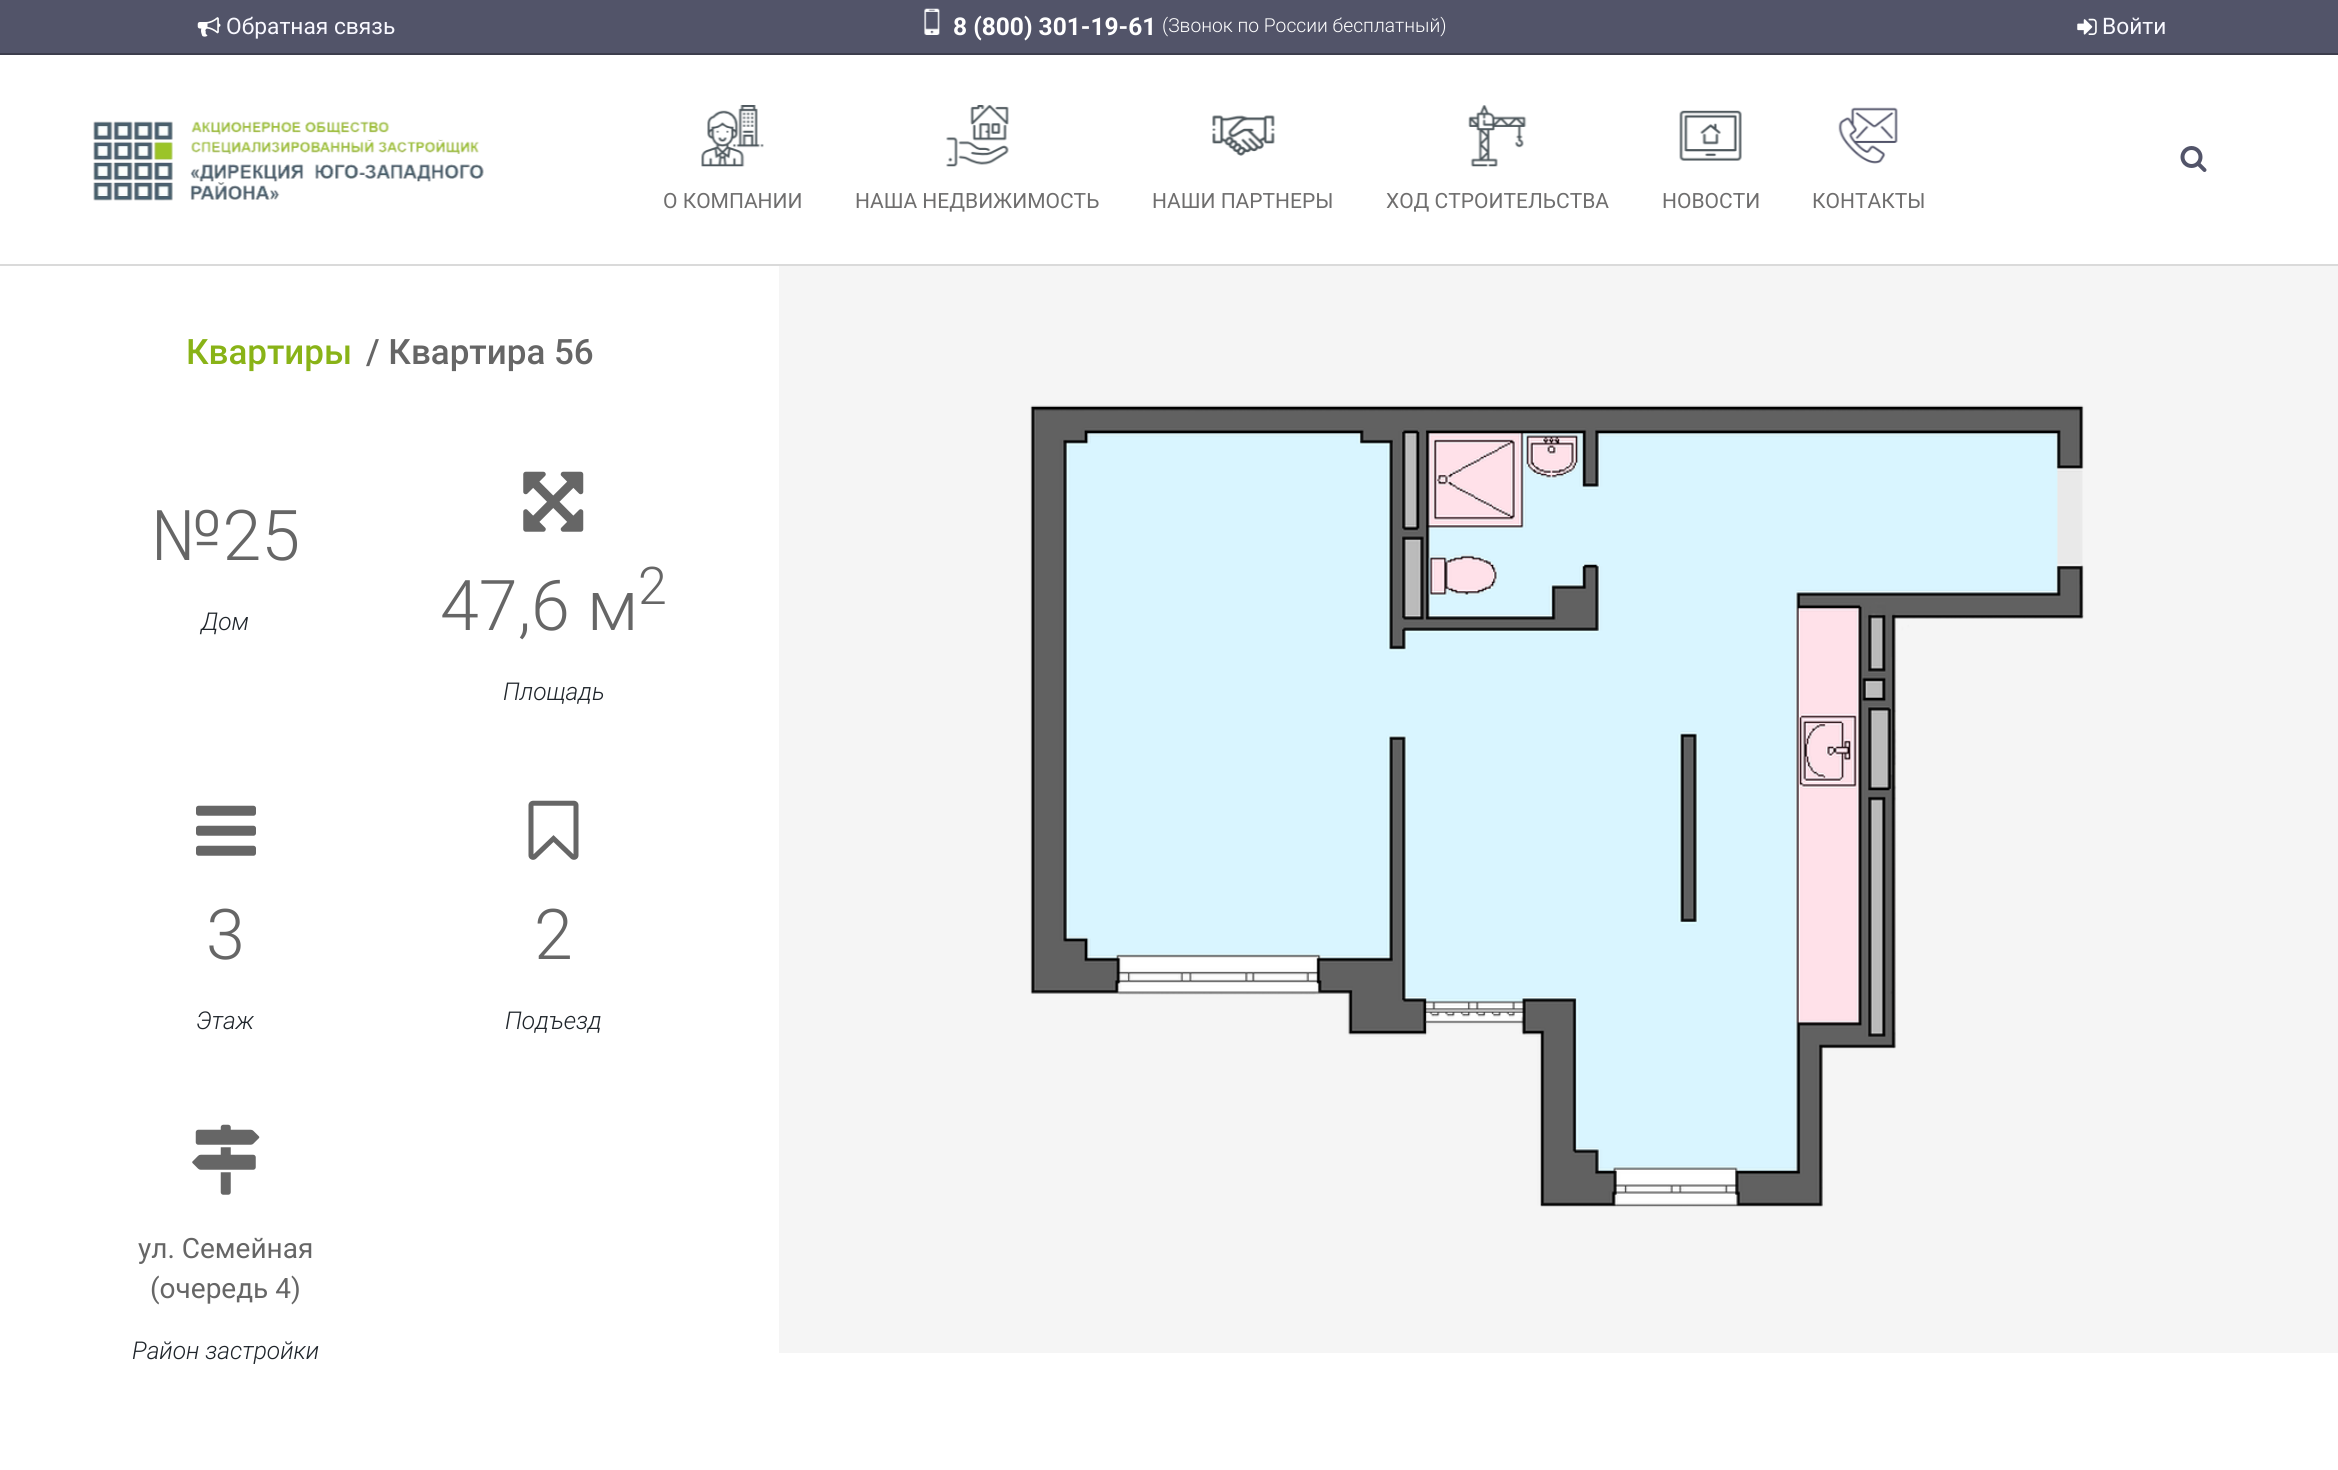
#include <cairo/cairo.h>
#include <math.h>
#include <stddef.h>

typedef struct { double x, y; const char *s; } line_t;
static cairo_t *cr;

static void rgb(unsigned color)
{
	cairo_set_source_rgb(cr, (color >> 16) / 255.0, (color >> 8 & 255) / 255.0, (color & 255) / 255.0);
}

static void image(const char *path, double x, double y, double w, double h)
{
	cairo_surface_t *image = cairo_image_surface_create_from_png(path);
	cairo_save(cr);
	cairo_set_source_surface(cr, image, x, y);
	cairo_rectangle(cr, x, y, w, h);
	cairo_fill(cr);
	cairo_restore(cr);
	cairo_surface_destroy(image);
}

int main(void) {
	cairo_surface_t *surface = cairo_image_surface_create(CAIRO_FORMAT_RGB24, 2338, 1470);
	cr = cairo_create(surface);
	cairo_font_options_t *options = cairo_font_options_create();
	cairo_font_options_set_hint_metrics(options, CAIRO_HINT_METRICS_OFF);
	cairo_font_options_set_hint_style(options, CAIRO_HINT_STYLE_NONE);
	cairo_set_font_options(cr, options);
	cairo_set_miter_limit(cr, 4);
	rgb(0xffffff);
	cairo_paint(cr);
	rgb(0x525469);
	cairo_rectangle(cr, 0, 0, 2338, 53);
	cairo_fill(cr);
	rgb(0x3c3d4c);
	cairo_rectangle(cr, 0, 53, 2338, 2);
	cairo_fill(cr);
	image("img/1.png", 197, 17, 24, 20);
	image("img/2.png", 924, 8, 16, 27);
	image("img/3.png", 2077, 18, 20, 17);
	rgb(0xdadada);
	cairo_rectangle(cr, 0, 264, 2338, 2);
	cairo_fill(cr);
	image("img/4.png", 93, 121, 391, 80);
	image("img/5.png", 2180, 146, 27, 26);
	image("img/6.png", 701, 105, 63, 62);
	image("img/7.png", 946, 105, 63, 62);
	image("img/8.png", 1212, 115, 63, 41);
	image("img/9.png", 1468, 105, 59, 62);
	image("img/10.png", 1679, 110, 63, 51);
	image("img/11.png", 1838, 107, 60, 57);
	image("img/12.png", 523, 471, 61, 61);
	image("img/13.png", 196, 805, 60, 51);
	image("img/14.png", 528, 800, 51, 60);
	image("img/15.png", 192, 1124, 68, 71);
	rgb(0xf5f5f5);
	cairo_rectangle(cr, 779, 266, 1559, 1087);
	cairo_fill(cr);
	image("img/16.png", 1030, 405, 1054, 802);
	cairo_select_font_face(cr, "Roboto", CAIRO_FONT_SLANT_NORMAL, CAIRO_FONT_WEIGHT_NORMAL);
	cairo_set_font_size(cr, 22.75);
	rgb(0xf8f8ff);
	cairo_move_to(cr, 226, 34);
	cairo_show_text(cr, "Обратная связь");
	cairo_select_font_face(cr, "Roboto", CAIRO_FONT_SLANT_NORMAL, CAIRO_FONT_WEIGHT_BOLD);
	cairo_set_font_size(cr, 24.5);
	rgb(0xffffff);
	cairo_move_to(cr, 953, 35);
	cairo_show_text(cr, "8 (800) 301-19-61");
	cairo_select_font_face(cr, "Roboto Light", CAIRO_FONT_SLANT_NORMAL, CAIRO_FONT_WEIGHT_NORMAL);
	cairo_set_font_size(cr, 19.25);
	cairo_move_to(cr, 1162, 32);
	cairo_show_text(cr, "(Звонок по России бесплатный)");
	cairo_select_font_face(cr, "Roboto", CAIRO_FONT_SLANT_NORMAL, CAIRO_FONT_WEIGHT_NORMAL);
	cairo_set_font_size(cr, 22.75);
	rgb(0xf8f8ff);
	cairo_move_to(cr, 2102, 34);
	cairo_show_text(cr, "Войти");
	cairo_set_font_size(cr, 21);
	rgb(0x6f6e6e);
	{
		static const line_t items[] = {
			{663, 208, "О КОМПАНИИ"},
			{855, 208, "НАША НЕДВИЖИМОСТЬ"},
			{1152, 208, "НАШИ ПАРТНЕРЫ"},
			{1386, 208, "ХОД СТРОИТЕЛЬСТВА"},
			{1662, 208, "НОВОСТИ"},
			{1812, 208, "КОНТАКТЫ"},
		};
		for (size_t i = 0; i < sizeof items / sizeof *items; i++) {
			cairo_move_to(cr, items[i].x, items[i].y);
			cairo_show_text(cr, items[i].s);
		}
	}
	cairo_select_font_face(cr, "Roboto Medium", CAIRO_FONT_SLANT_NORMAL, CAIRO_FONT_WEIGHT_NORMAL);
	cairo_set_font_size(cr, 35);
	rgb(0x89b317);
	cairo_move_to(cr, 186, 364);
	cairo_show_text(cr, "Квартиры");
	rgb(0x666666);
	cairo_move_to(cr, 366, 364);
	cairo_show_text(cr, "/ Квартира 56");
	cairo_select_font_face(cr, "Roboto Light", CAIRO_FONT_SLANT_NORMAL, CAIRO_FONT_WEIGHT_NORMAL);
	cairo_set_font_size(cr, 70);
	cairo_move_to(cr, 151, 560);
	cairo_show_text(cr, "№25");
	cairo_select_font_face(cr, "Roboto Light", CAIRO_FONT_SLANT_ITALIC, CAIRO_FONT_WEIGHT_NORMAL);
	cairo_set_font_size(cr, 24.5);
	rgb(0x1f252b);
	cairo_move_to(cr, 201, 630);
	cairo_show_text(cr, "Дом");
	cairo_select_font_face(cr, "Roboto Light", CAIRO_FONT_SLANT_NORMAL, CAIRO_FONT_WEIGHT_NORMAL);
	cairo_set_font_size(cr, 70);
	rgb(0x666666);
	cairo_move_to(cr, 440, 630);
	cairo_show_text(cr, "47,6 м");
	cairo_set_font_size(cr, 52);
	cairo_move_to(cr, 638, 604);
	cairo_show_text(cr, "2");
	cairo_select_font_face(cr, "Roboto Light", CAIRO_FONT_SLANT_ITALIC, CAIRO_FONT_WEIGHT_NORMAL);
	cairo_set_font_size(cr, 24.5);
	rgb(0x1f252b);
	cairo_move_to(cr, 503, 700);
	cairo_show_text(cr, "Площадь");
	cairo_select_font_face(cr, "Roboto Light", CAIRO_FONT_SLANT_NORMAL, CAIRO_FONT_WEIGHT_NORMAL);
	cairo_set_font_size(cr, 70);
	rgb(0x666666);
	cairo_move_to(cr, 206, 959);
	cairo_show_text(cr, "3");
	cairo_select_font_face(cr, "Roboto Light", CAIRO_FONT_SLANT_ITALIC, CAIRO_FONT_WEIGHT_NORMAL);
	cairo_set_font_size(cr, 24.5);
	rgb(0x1f252b);
	cairo_move_to(cr, 196, 1029);
	cairo_show_text(cr, "Этаж");
	cairo_select_font_face(cr, "Roboto Light", CAIRO_FONT_SLANT_NORMAL, CAIRO_FONT_WEIGHT_NORMAL);
	cairo_set_font_size(cr, 70);
	rgb(0x666666);
	cairo_move_to(cr, 534, 959);
	cairo_show_text(cr, "2");
	cairo_select_font_face(cr, "Roboto Light", CAIRO_FONT_SLANT_ITALIC, CAIRO_FONT_WEIGHT_NORMAL);
	cairo_set_font_size(cr, 24.5);
	rgb(0x1f252b);
	cairo_move_to(cr, 505, 1029);
	cairo_show_text(cr, "Подъезд");
	cairo_select_font_face(cr, "Roboto", CAIRO_FONT_SLANT_NORMAL, CAIRO_FONT_WEIGHT_NORMAL);
	cairo_set_font_size(cr, 28);
	rgb(0x666666);
	cairo_move_to(cr, 138, 1258);
	cairo_show_text(cr, "ул. Семейная");
	cairo_move_to(cr, 150, 1298);
	cairo_show_text(cr, "(очередь 4)");
	cairo_select_font_face(cr, "Roboto Light", CAIRO_FONT_SLANT_ITALIC, CAIRO_FONT_WEIGHT_NORMAL);
	cairo_set_font_size(cr, 24.5);
	rgb(0x1f252b);
	cairo_move_to(cr, 132, 1359);
	cairo_show_text(cr, "Район застройки");
	cairo_surface_write_to_png(surface, "page.png");
	cairo_font_options_destroy(options);
	cairo_destroy(cr);
	cairo_surface_destroy(surface);
	return 0;
}
